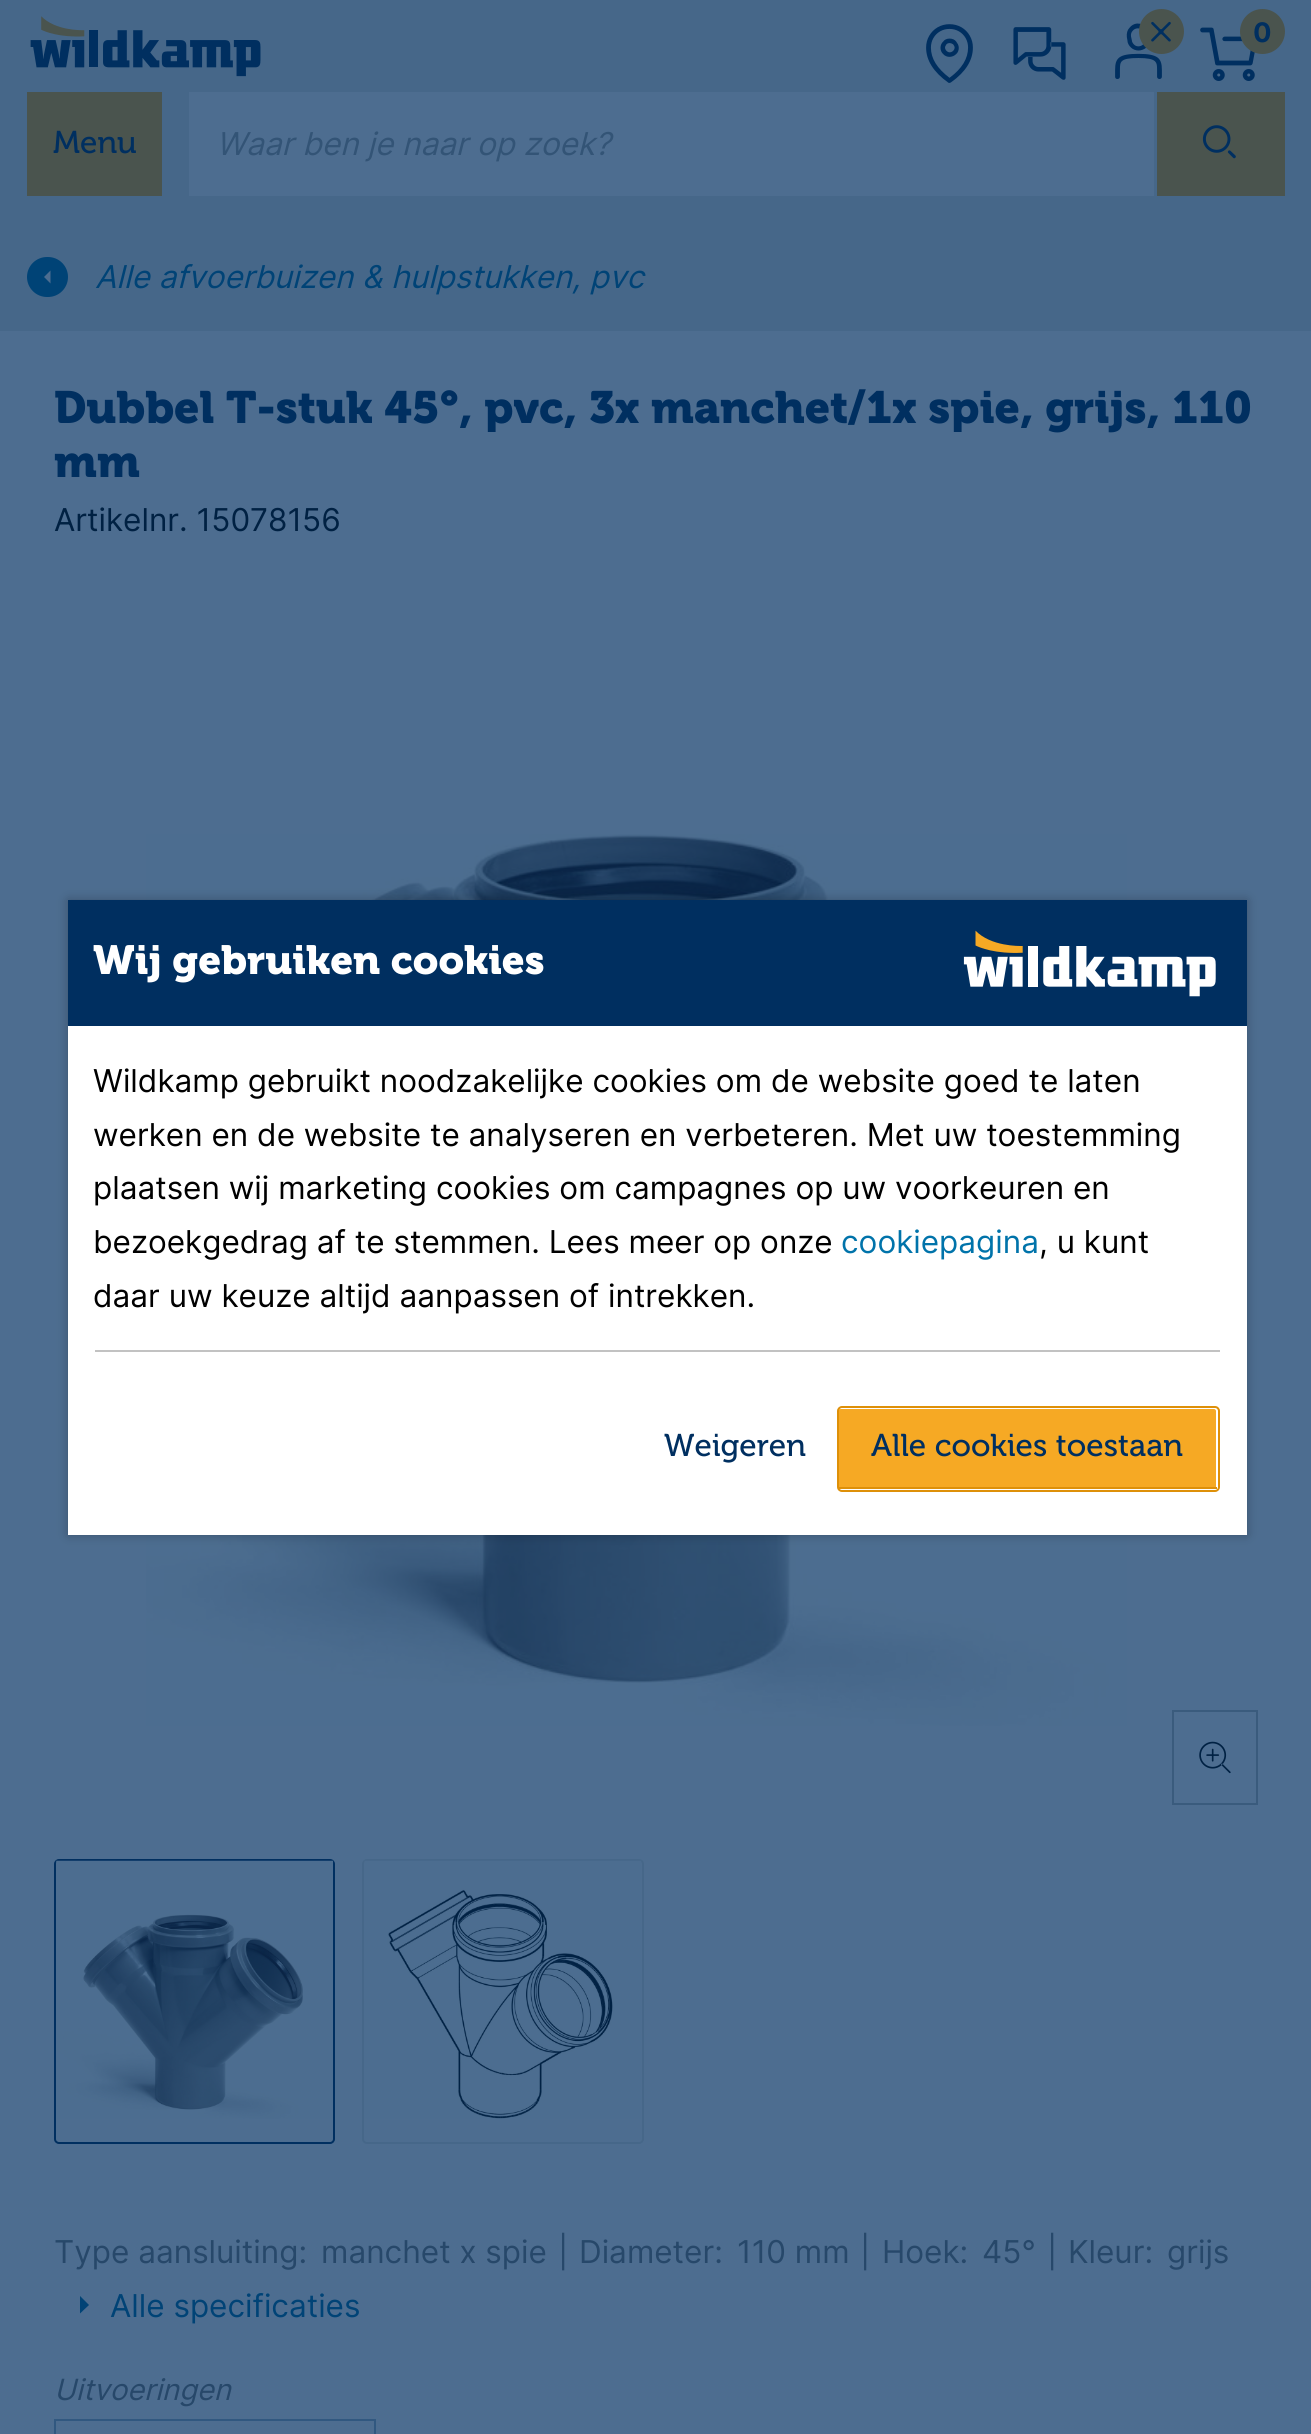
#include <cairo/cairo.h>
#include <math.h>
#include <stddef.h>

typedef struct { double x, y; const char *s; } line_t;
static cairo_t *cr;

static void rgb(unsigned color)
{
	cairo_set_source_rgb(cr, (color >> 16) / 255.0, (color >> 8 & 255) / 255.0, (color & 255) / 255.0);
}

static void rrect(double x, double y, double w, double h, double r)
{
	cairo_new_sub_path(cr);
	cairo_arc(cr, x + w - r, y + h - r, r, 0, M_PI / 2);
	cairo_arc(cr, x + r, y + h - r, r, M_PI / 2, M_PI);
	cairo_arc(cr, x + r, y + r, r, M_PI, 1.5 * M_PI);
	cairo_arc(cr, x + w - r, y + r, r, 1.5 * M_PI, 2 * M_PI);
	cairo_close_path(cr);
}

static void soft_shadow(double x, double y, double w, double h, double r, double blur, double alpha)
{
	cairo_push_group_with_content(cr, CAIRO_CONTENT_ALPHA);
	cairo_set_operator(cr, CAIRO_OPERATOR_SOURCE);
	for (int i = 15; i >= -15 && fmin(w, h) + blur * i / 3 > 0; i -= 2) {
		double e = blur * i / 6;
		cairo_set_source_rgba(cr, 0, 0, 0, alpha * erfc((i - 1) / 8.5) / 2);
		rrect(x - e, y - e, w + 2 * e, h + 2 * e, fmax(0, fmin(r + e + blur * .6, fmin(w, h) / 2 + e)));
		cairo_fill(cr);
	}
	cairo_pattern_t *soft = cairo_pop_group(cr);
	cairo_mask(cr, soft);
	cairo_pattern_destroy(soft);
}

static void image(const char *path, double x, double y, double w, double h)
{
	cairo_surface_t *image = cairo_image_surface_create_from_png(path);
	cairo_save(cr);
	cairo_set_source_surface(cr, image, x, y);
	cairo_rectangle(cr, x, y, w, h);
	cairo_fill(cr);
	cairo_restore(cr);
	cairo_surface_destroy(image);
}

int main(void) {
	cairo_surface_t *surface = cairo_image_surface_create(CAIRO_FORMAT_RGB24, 1311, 2434);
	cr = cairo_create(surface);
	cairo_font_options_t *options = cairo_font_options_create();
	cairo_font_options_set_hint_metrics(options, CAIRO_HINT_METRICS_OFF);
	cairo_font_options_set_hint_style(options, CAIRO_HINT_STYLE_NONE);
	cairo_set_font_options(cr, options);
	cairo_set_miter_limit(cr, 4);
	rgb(0x466789);
	cairo_paint(cr);
	rgb(0x4a544e);
	cairo_rectangle(cr, 27, 92, 135, 104);
	cairo_fill(cr);
	image("img/1.png", 30, 16, 231, 61);
	image("img/2.png", 926, 24, 47, 59);
	image("img/3.png", 1013, 27, 53, 53);
	image("img/5.png", 1115, 23, 47, 56);
	cairo_arc(cr, 1161.5, 31.5, 22.5, 0, 2 * M_PI);
	cairo_fill(cr);
	image("img/4.png", 1151, 21, 20, 21);
	image("img/6.png", 1200, 27, 55, 54);
	cairo_arc(cr, 1262.5, 31.5, 22.5, 0, 2 * M_PI);
	cairo_fill(cr);
	rgb(0x4d6d90);
	cairo_rectangle(cr, 189, 92, 965, 104);
	cairo_fill(cr);
	rgb(0x4a544e);
	cairo_rectangle(cr, 1157, 92, 128, 104);
	cairo_fill(cr);
	image("img/7.png", 1202, 125, 34, 34);
	rgb(0x004376);
	rrect(27, 257, 41, 40, 20);
	cairo_fill(cr);
	rgb(0x4d6d90);
	cairo_new_path(cr);
	cairo_move_to(cr, 50.5, 283.5);
	cairo_line_to(cr, 44, 277);
	cairo_line_to(cr, 50.5, 270.5);
	cairo_close_path(cr);
	cairo_fill(cr);
	cairo_rectangle(cr, 0, 331, 1311, 2103);
	cairo_fill(cr);
	image("img/8.png", 146, 834, 981, 892);
	cairo_rectangle(cr, 1173, 1711, 84, 93);
	rgb(0x3a5b7d);
	cairo_stroke(cr);
	image("img/9.png", 1199, 1741, 32, 33);
	rrect(55, 1860, 279, 283, 4);
	rgb(0x002f60);
	cairo_stroke(cr);
	image("img/10.png", 56, 1860, 277, 259);
	rrect(363, 1860, 280, 283, 4);
	rgb(0x466789);
	cairo_stroke(cr);
	image("img/11.png", 364, 1860, 278, 259);
	rgb(0x004376);
	cairo_new_path(cr);
	cairo_move_to(cr, 80, 2296);
	cairo_line_to(cr, 89, 2305);
	cairo_line_to(cr, 80, 2313.5);
	cairo_close_path(cr);
	cairo_fill(cr);
	cairo_rectangle(cr, 55, 2420, 320, 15);
	rgb(0x315880);
	cairo_stroke(cr);
	rgb(0x000000);
	soft_shadow(68, 900, 1179, 635, 0, 5.5, 0.25);
	rgb(0xffffff);
	cairo_rectangle(cr, 68, 1026, 1179, 509);
	cairo_fill(cr);
	rgb(0x002f60);
	cairo_rectangle(cr, 68, 900, 1179, 126);
	cairo_fill(cr);
	image("img/12.png", 963, 930, 253, 67);
	rgb(0xc2c2c2);
	cairo_rectangle(cr, 95, 1350, 1125, 2);
	cairo_fill(cr);
	rgb(0xf6a924);
	cairo_new_path(cr);
	cairo_move_to(cr, 841, 1409);
	cairo_line_to(cr, 1214, 1409);
	cairo_curve_to(cr, 1215, 1409, 1216, 1410, 1216, 1411);
	cairo_line_to(cr, 1216, 1488);
	cairo_line_to(cr, 838, 1488);
	cairo_line_to(cr, 838, 1411);
	cairo_curve_to(cr, 838, 1410, 839, 1409, 841, 1409);
	cairo_close_path(cr);
	cairo_fill(cr);
	rrect(838, 1407, 381, 84, 4);
	rgb(0xde9009);
	cairo_stroke(cr);
	cairo_rectangle(cr, 839, 1487, 378, 2);
	cairo_fill(cr);
	cairo_select_font_face(cr, "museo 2", CAIRO_FONT_SLANT_NORMAL, CAIRO_FONT_WEIGHT_NORMAL);
	cairo_set_font_size(cr, 31.5);
	rgb(0x002f60);
	cairo_move_to(cr, 53, 153);
	cairo_show_text(cr, "Menu");
	cairo_select_font_face(cr, "Inter", CAIRO_FONT_SLANT_NORMAL, CAIRO_FONT_WEIGHT_BOLD);
	cairo_set_font_size(cr, 27);
	cairo_move_to(cr, 1253, 42);
	cairo_show_text(cr, "0");
	cairo_select_font_face(cr, "Inter", CAIRO_FONT_SLANT_ITALIC, CAIRO_FONT_WEIGHT_NORMAL);
	cairo_set_font_size(cr, 31.5);
	rgb(0x335476);
	cairo_move_to(cr, 216, 155);
	cairo_show_text(cr, "Waar ben je naar op zoek?");
	rgb(0x004376);
	cairo_move_to(cr, 95, 288);
	cairo_show_text(cr, "Alle afvoerbuizen & hulpstukken, pvc");
	cairo_select_font_face(cr, "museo", CAIRO_FONT_SLANT_NORMAL, CAIRO_FONT_WEIGHT_NORMAL);
	cairo_set_font_size(cr, 45);
	rgb(0x002f60);
	cairo_move_to(cr, 54, 423);
	cairo_show_text(cr, "Dubbel T-stuk 45°, pvc, 3x manchet/1x spie, grijs, 110");
	cairo_move_to(cr, 54, 477);
	cairo_show_text(cr, "mm");
	cairo_select_font_face(cr, "Inter", CAIRO_FONT_SLANT_NORMAL, CAIRO_FONT_WEIGHT_NORMAL);
	cairo_set_font_size(cr, 31.5);
	rgb(0x002143);
	cairo_move_to(cr, 54, 531);
	cairo_show_text(cr, "Artikelnr. 15078156");
	rgb(0x27486a);
	{
		static const line_t items[] = {
			{54, 2263, "Type aansluiting:"},
			{321, 2263, "manchet x spie"},
			{558, 2263, "|"},
			{579, 2263, "Diameter:"},
			{737, 2263, "110 mm"},
			{860, 2263, "|"},
			{882, 2263, "Hoek:"},
			{982, 2263, "45°"},
			{1047, 2263, "|"},
			{1068, 2263, "Kleur:"},
			{1167, 2263, "grijs"},
		};
		for (size_t i = 0; i < sizeof items / sizeof *items; i++) {
			cairo_move_to(cr, items[i].x, items[i].y);
			cairo_show_text(cr, items[i].s);
		}
	}
	rgb(0x004376);
	cairo_move_to(cr, 110, 2317);
	cairo_show_text(cr, "Alle specificaties");
	cairo_select_font_face(cr, "Inter", CAIRO_FONT_SLANT_ITALIC, CAIRO_FONT_WEIGHT_NORMAL);
	cairo_set_font_size(cr, 29.25);
	rgb(0x27486a);
	cairo_move_to(cr, 54, 2400);
	cairo_show_text(cr, "Uitvoeringen");
	cairo_select_font_face(cr, "museo", CAIRO_FONT_SLANT_NORMAL, CAIRO_FONT_WEIGHT_NORMAL);
	cairo_set_font_size(cr, 40.5);
	rgb(0xffffff);
	cairo_move_to(cr, 93, 974);
	cairo_show_text(cr, "Wij gebruiken cookies");
	cairo_select_font_face(cr, "Inter", CAIRO_FONT_SLANT_NORMAL, CAIRO_FONT_WEIGHT_NORMAL);
	cairo_set_font_size(cr, 31.5);
	rgb(0x000000);
	{
		static const line_t items[] = {
			{93, 1092, "Wildkamp gebruikt noodzakelijke cookies om de website goed te laten"},
			{93, 1146, "werken en de website te analyseren en verbeteren. Met uw toestemming"},
			{93, 1199, "plaatsen wij marketing cookies om campagnes op uw voorkeuren en"},
			{93, 1253, "bezoekgedrag af te stemmen. Lees meer op onze"},
		};
		for (size_t i = 0; i < sizeof items / sizeof *items; i++) {
			cairo_move_to(cr, items[i].x, items[i].y);
			cairo_show_text(cr, items[i].s);
		}
	}
	rgb(0x0073aa);
	cairo_move_to(cr, 841, 1253);
	cairo_show_text(cr, "cookiepagina");
	rgb(0x000000);
	cairo_move_to(cr, 1039, 1253);
	cairo_show_text(cr, ", u kunt");
	cairo_move_to(cr, 93, 1307);
	cairo_show_text(cr, "daar uw keuze altijd aanpassen of intrekken.");
	cairo_select_font_face(cr, "museo 2", CAIRO_FONT_SLANT_NORMAL, CAIRO_FONT_WEIGHT_NORMAL);
	rgb(0x002f60);
	cairo_move_to(cr, 664, 1456);
	cairo_show_text(cr, "Weigeren");
	cairo_move_to(cr, 871, 1456);
	cairo_show_text(cr, "Alle cookies toestaan");
	cairo_surface_write_to_png(surface, "page.png");
	cairo_font_options_destroy(options);
	cairo_destroy(cr);
	cairo_surface_destroy(surface);
	return 0;
}
